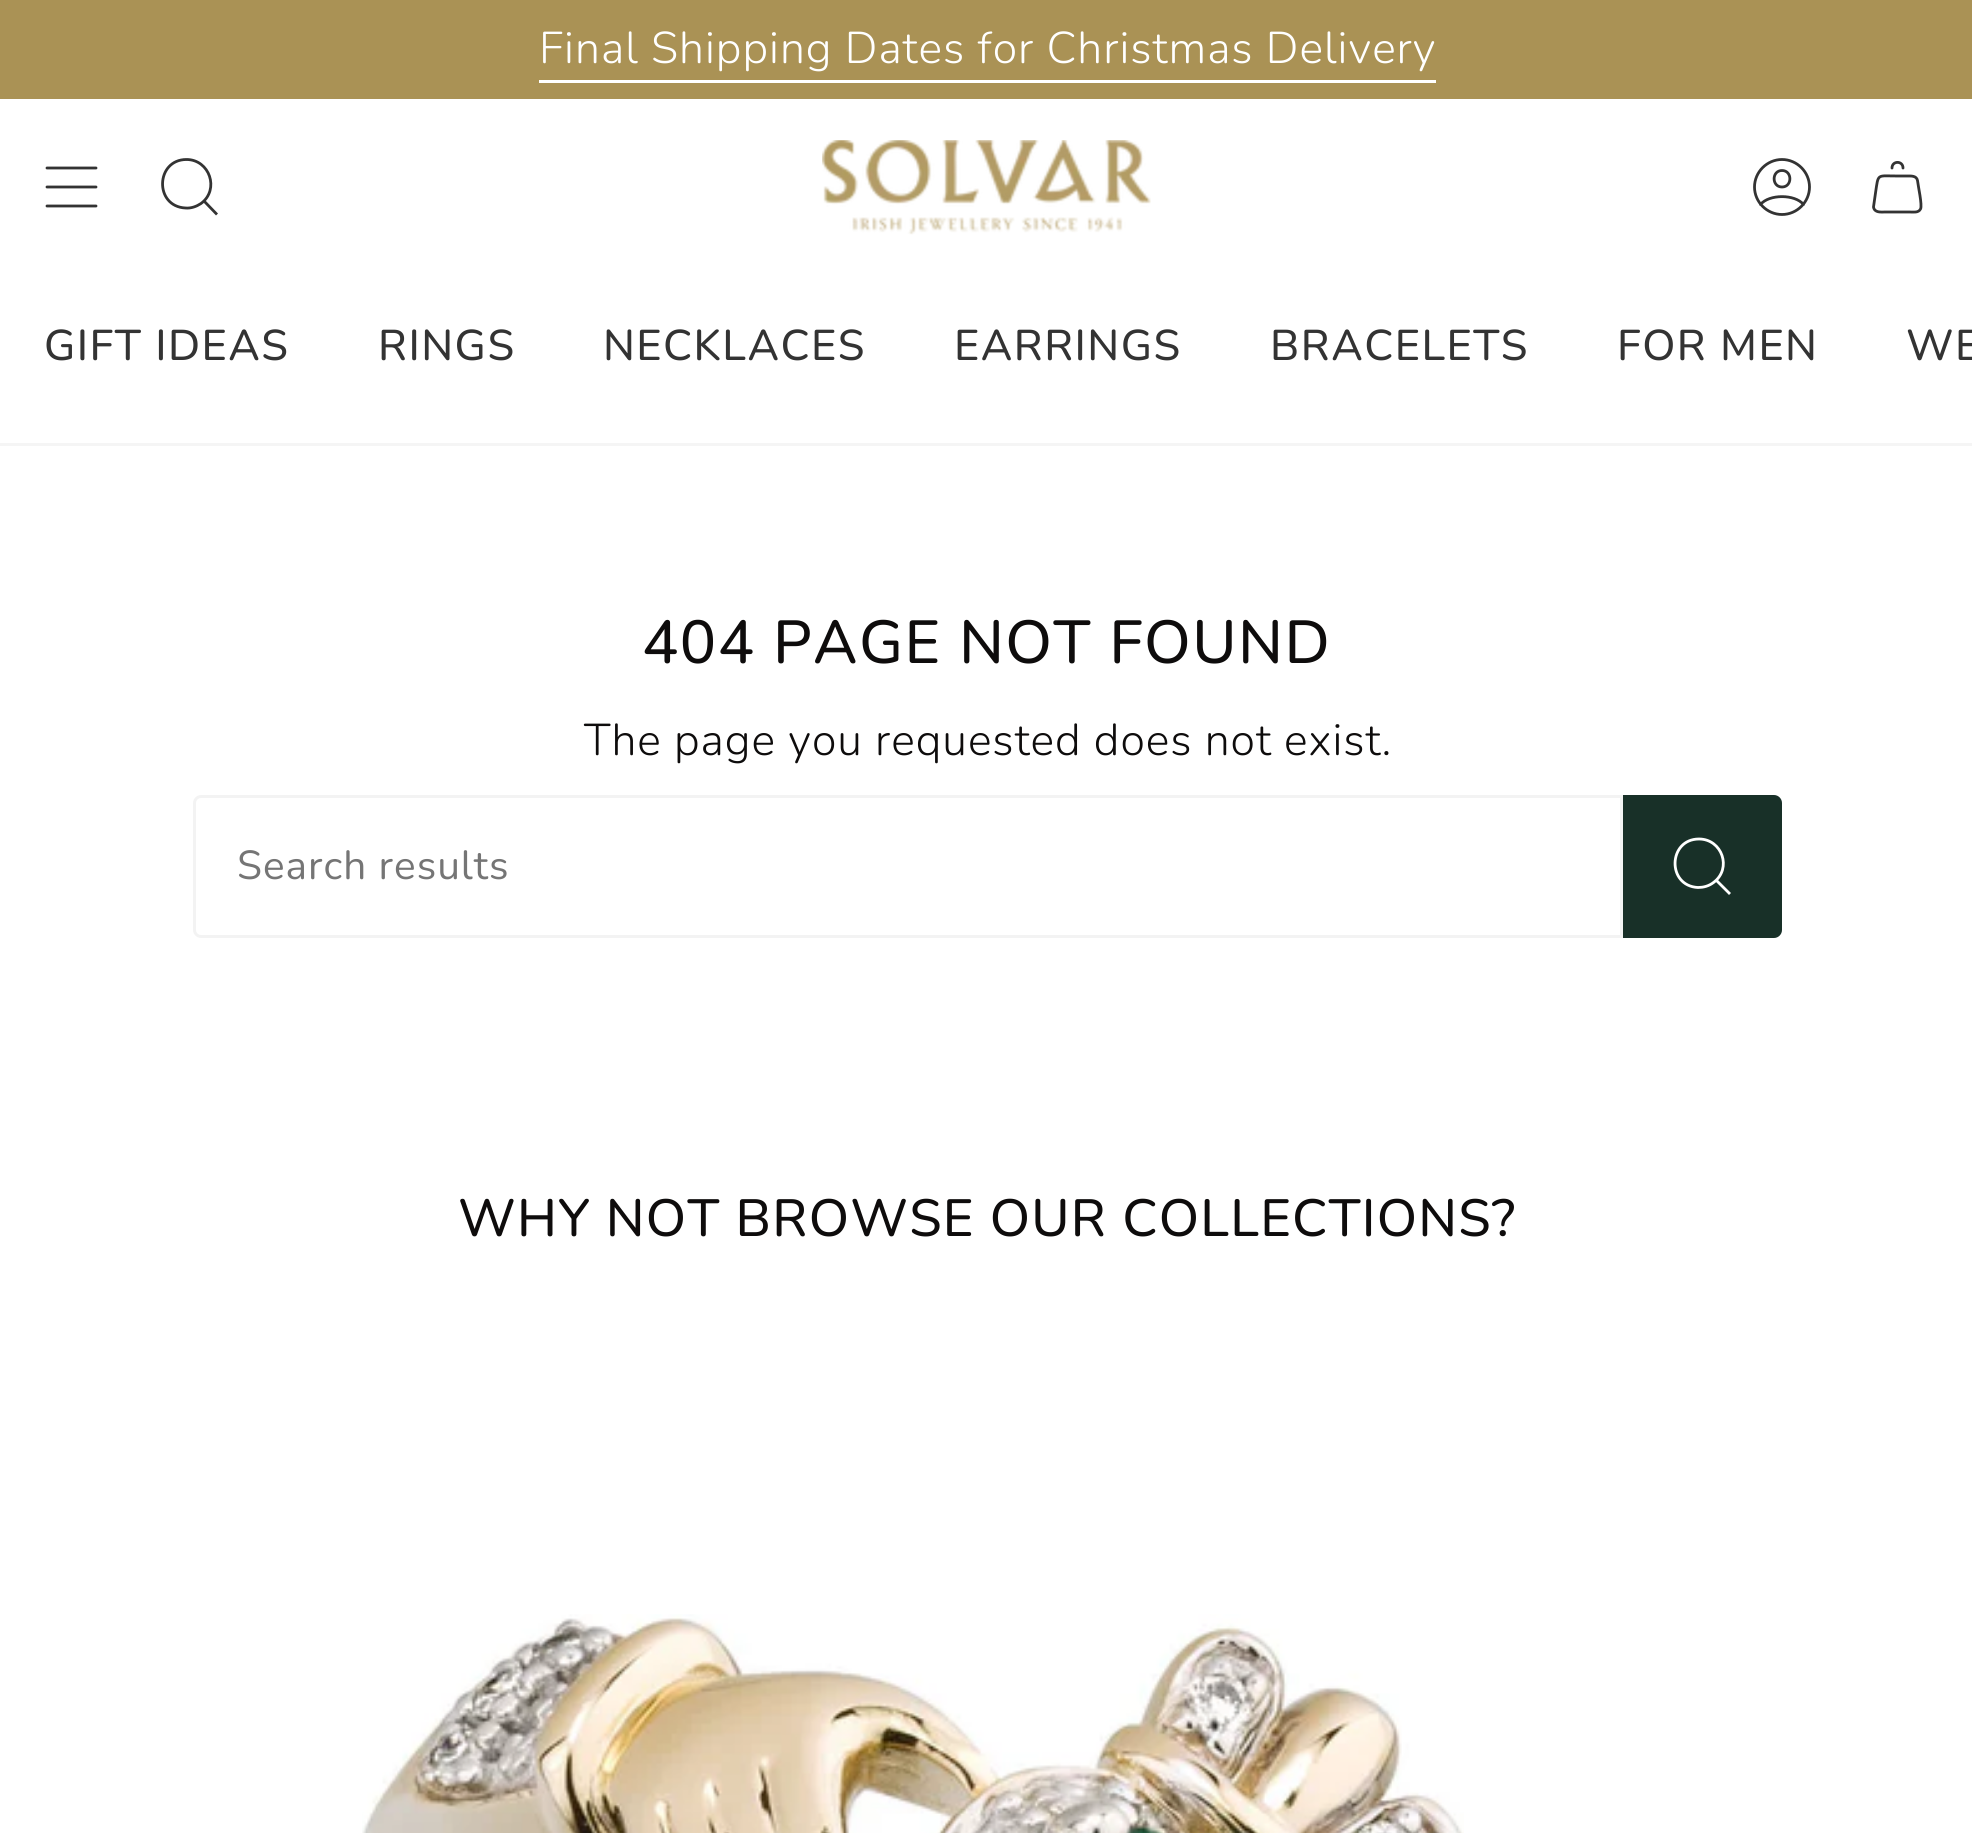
#include <cairo/cairo.h>
#include <math.h>
#include <stddef.h>

typedef struct { double x, y; const char *s; } line_t;
static cairo_t *cr;

static void rgb(unsigned color)
{
	cairo_set_source_rgb(cr, (color >> 16) / 255.0, (color >> 8 & 255) / 255.0, (color & 255) / 255.0);
}

static void tracked(double x, double y, const char *s, double letter, double word)
{
	cairo_move_to(cr, x, y);
	while (*s) {
		char ch[5] = {0};
		int n = 0;
		do ch[n++] = *s++; while ((*s & 0xC0) == 0x80);
		cairo_show_text(cr, ch);
		cairo_rel_move_to(cr, letter + word * (*ch == ' '), 0);
	}
}

static void image(const char *path, double x, double y, double w, double h)
{
	cairo_surface_t *image = cairo_image_surface_create_from_png(path);
	cairo_save(cr);
	cairo_set_source_surface(cr, image, x, y);
	cairo_rectangle(cr, x, y, w, h);
	cairo_fill(cr);
	cairo_restore(cr);
	cairo_surface_destroy(image);
}

int main(void) {
	cairo_surface_t *surface = cairo_image_surface_create(CAIRO_FORMAT_RGB24, 1972, 1833);
	cr = cairo_create(surface);
	cairo_font_options_t *options = cairo_font_options_create();
	cairo_font_options_set_hint_metrics(options, CAIRO_HINT_METRICS_OFF);
	cairo_font_options_set_hint_style(options, CAIRO_HINT_STYLE_NONE);
	cairo_set_font_options(cr, options);
	cairo_set_miter_limit(cr, 4);
	rgb(0xffffff);
	cairo_paint(cr);
	rgb(0xaa9255);
	cairo_rectangle(cr, 0, 0, 1972, 99);
	cairo_fill(cr);
	rgb(0xffffff);
	cairo_rectangle(cr, 539, 80, 897, 3);
	cairo_fill(cr);
	cairo_new_path(cr);
	cairo_move_to(cr, 47, 168);
	cairo_line_to(cr, 96, 168);
	cairo_move_to(cr, 47, 187);
	cairo_line_to(cr, 96, 187);
	cairo_move_to(cr, 47, 206);
	cairo_line_to(cr, 96, 206);
	rgb(0x333333);
	cairo_set_line_width(cr, 2.8);
	cairo_set_line_cap(cr, CAIRO_LINE_CAP_ROUND);
	cairo_set_line_join(cr, CAIRO_LINE_JOIN_ROUND);
	cairo_stroke(cr);
	cairo_new_path(cr);
	cairo_move_to(cr, 186.5, 159.5);
	cairo_curve_to(cr, 209.5, 159.5, 220, 189.5, 201, 203.5);
	cairo_curve_to(cr, 196.5, 206.5, 191, 208.5, 185.5, 208);
	cairo_curve_to(cr, 154, 206.5, 155.5, 159.5, 186.5, 159.5);
	cairo_close_path(cr);
	cairo_move_to(cr, 204, 201);
	cairo_line_to(cr, 217, 214.5);
	cairo_set_line_cap(cr, CAIRO_LINE_CAP_BUTT);
	cairo_set_line_join(cr, CAIRO_LINE_JOIN_MITER);
	cairo_stroke(cr);
	image("img/1.png", 822, 140, 329, 95);
	cairo_new_path(cr);
	cairo_move_to(cr, 1782, 159.5);
	cairo_curve_to(cr, 1767, 159.5, 1754.5, 172, 1754.5, 187);
	cairo_curve_to(cr, 1754.5, 202, 1767, 214.5, 1782, 214.5);
	cairo_curve_to(cr, 1797, 214.5, 1809.5, 202, 1809.5, 187);
	cairo_curve_to(cr, 1809.5, 172, 1797, 159.5, 1782, 159.5);
	cairo_close_path(cr);
	cairo_move_to(cr, 1760.5, 204.5);
	cairo_curve_to(cr, 1769, 194, 1795, 194, 1803.5, 204.5);
	cairo_move_to(cr, 1782, 187);
	cairo_curve_to(cr, 1792.5, 187, 1792.5, 170.5, 1782, 170.5);
	cairo_curve_to(cr, 1771.5, 170.5, 1771.5, 187, 1782, 187);
	cairo_close_path(cr);
	cairo_set_line_cap(cr, CAIRO_LINE_CAP_ROUND);
	cairo_set_line_join(cr, CAIRO_LINE_JOIN_ROUND);
	cairo_stroke(cr);
	cairo_new_path(cr);
	cairo_move_to(cr, 1917.5, 180.5);
	cairo_curve_to(cr, 1918, 185.5, 1922.5, 205.5, 1920.5, 209);
	cairo_curve_to(cr, 1918.5, 213, 1913.5, 212, 1909.5, 212);
	cairo_line_to(cr, 1885.5, 212);
	cairo_curve_to(cr, 1881, 212, 1874.5, 213, 1873.5, 207);
	cairo_line_to(cr, 1875.5, 193);
	cairo_curve_to(cr, 1878.5, 173, 1876.5, 176, 1897.5, 176);
	cairo_line_to(cr, 1907, 176);
	cairo_curve_to(cr, 1911, 176, 1916.5, 175.5, 1917.5, 180.5);
	cairo_close_path(cr);
	cairo_move_to(cr, 1903, 168);
	cairo_curve_to(cr, 1903, 160.5, 1892, 160.5, 1892, 168);
	cairo_stroke(cr);
	rgb(0xf5f5f5);
	cairo_rectangle(cr, 0, 443, 1972, 3);
	cairo_fill(cr);
	cairo_new_path(cr);
	cairo_move_to(cr, 201, 796.5);
	cairo_line_to(cr, 1621.5, 796.5);
	cairo_line_to(cr, 1621.5, 936.5);
	cairo_line_to(cr, 201, 936.5);
	cairo_curve_to(cr, 197.5, 936.5, 194.5, 933.5, 194.5, 930);
	cairo_line_to(cr, 194.5, 803);
	cairo_curve_to(cr, 194.5, 799.5, 197.5, 796.5, 201, 796.5);
	cairo_close_path(cr);
	rgb(0xf3f3f3);
	cairo_set_line_width(cr, 3);
	cairo_set_line_cap(cr, CAIRO_LINE_CAP_BUTT);
	cairo_set_line_join(cr, CAIRO_LINE_JOIN_MITER);
	cairo_stroke(cr);
	rgb(0x183028);
	cairo_new_path(cr);
	cairo_move_to(cr, 1624.5, 796.5);
	cairo_line_to(cr, 1774, 796.5);
	cairo_curve_to(cr, 1777.5, 796.5, 1780.5, 799.5, 1780.5, 803);
	cairo_line_to(cr, 1780.5, 930);
	cairo_curve_to(cr, 1780.5, 933.5, 1777.5, 936.5, 1774, 936.5);
	cairo_line_to(cr, 1624.5, 936.5);
	cairo_close_path(cr);
	cairo_fill_preserve(cr);
	cairo_stroke(cr);
	cairo_new_path(cr);
	cairo_move_to(cr, 1699, 839);
	cairo_curve_to(cr, 1722, 839, 1732.5, 868.5, 1713.5, 882.5);
	cairo_curve_to(cr, 1709, 886, 1703.5, 887.5, 1698, 887.5);
	cairo_curve_to(cr, 1666.5, 886, 1668, 839, 1699, 839);
	cairo_close_path(cr);
	cairo_move_to(cr, 1716.5, 880.5);
	cairo_line_to(cr, 1730, 894);
	rgb(0xffffff);
	cairo_set_line_width(cr, 2.8);
	cairo_stroke(cr);
	image("img/2.png", 362, 1614, 1102, 219);
	cairo_select_font_face(cr, "Nunito Light", CAIRO_FONT_SLANT_NORMAL, CAIRO_FONT_WEIGHT_NORMAL);
	cairo_set_font_size(cr, 44.5);
	tracked(539, 63, "Final Shipping Dates for Christmas Delivery", 1, 0);
	cairo_select_font_face(cr, "Nunito Medium", CAIRO_FONT_SLANT_NORMAL, CAIRO_FONT_WEIGHT_NORMAL);
	cairo_set_font_size(cr, 43);
	rgb(0x333333);
	{
		static const line_t items[] = {
			{44, 360, "GIFT IDEAS"},
			{378, 360, "RINGS"},
			{603, 360, "NECKLACES"},
			{954, 360, "EARRINGS"},
			{1270, 360, "BRACELETS"},
			{1617, 360, "FOR MEN"},
			{1906, 360, "WE"},
		};
		for (size_t i = 0; i < sizeof items / sizeof *items; i++) {
			tracked(items[i].x, items[i].y, items[i].s, 1.5, 0);
		}
	}
	cairo_set_font_size(cr, 60.6);
	rgb(0x0e0c0c);
	tracked(642, 663, "404 PAGE NOT FOUND", 1.5, 0);
	cairo_select_font_face(cr, "Nunito Light", CAIRO_FONT_SLANT_NORMAL, CAIRO_FONT_WEIGHT_NORMAL);
	cairo_set_font_size(cr, 44.5);
	tracked(584, 755, "The page you requested does not exist.", 1, 0);
	cairo_select_font_face(cr, "Nunito", CAIRO_FONT_SLANT_NORMAL, CAIRO_FONT_WEIGHT_NORMAL);
	cairo_set_font_size(cr, 40.5);
	rgb(0x757575);
	tracked(237, 879, "Search results", 1, 0);
	cairo_select_font_face(cr, "Nunito Medium", CAIRO_FONT_SLANT_NORMAL, CAIRO_FONT_WEIGHT_NORMAL);
	cairo_set_font_size(cr, 52.25);
	rgb(0x0e0c0c);
	tracked(458, 1236, "WHY NOT BROWSE OUR COLLECTIONS?", 1.3, 0);
	cairo_surface_write_to_png(surface, "page.png");
	cairo_font_options_destroy(options);
	cairo_destroy(cr);
	cairo_surface_destroy(surface);
	return 0;
}
